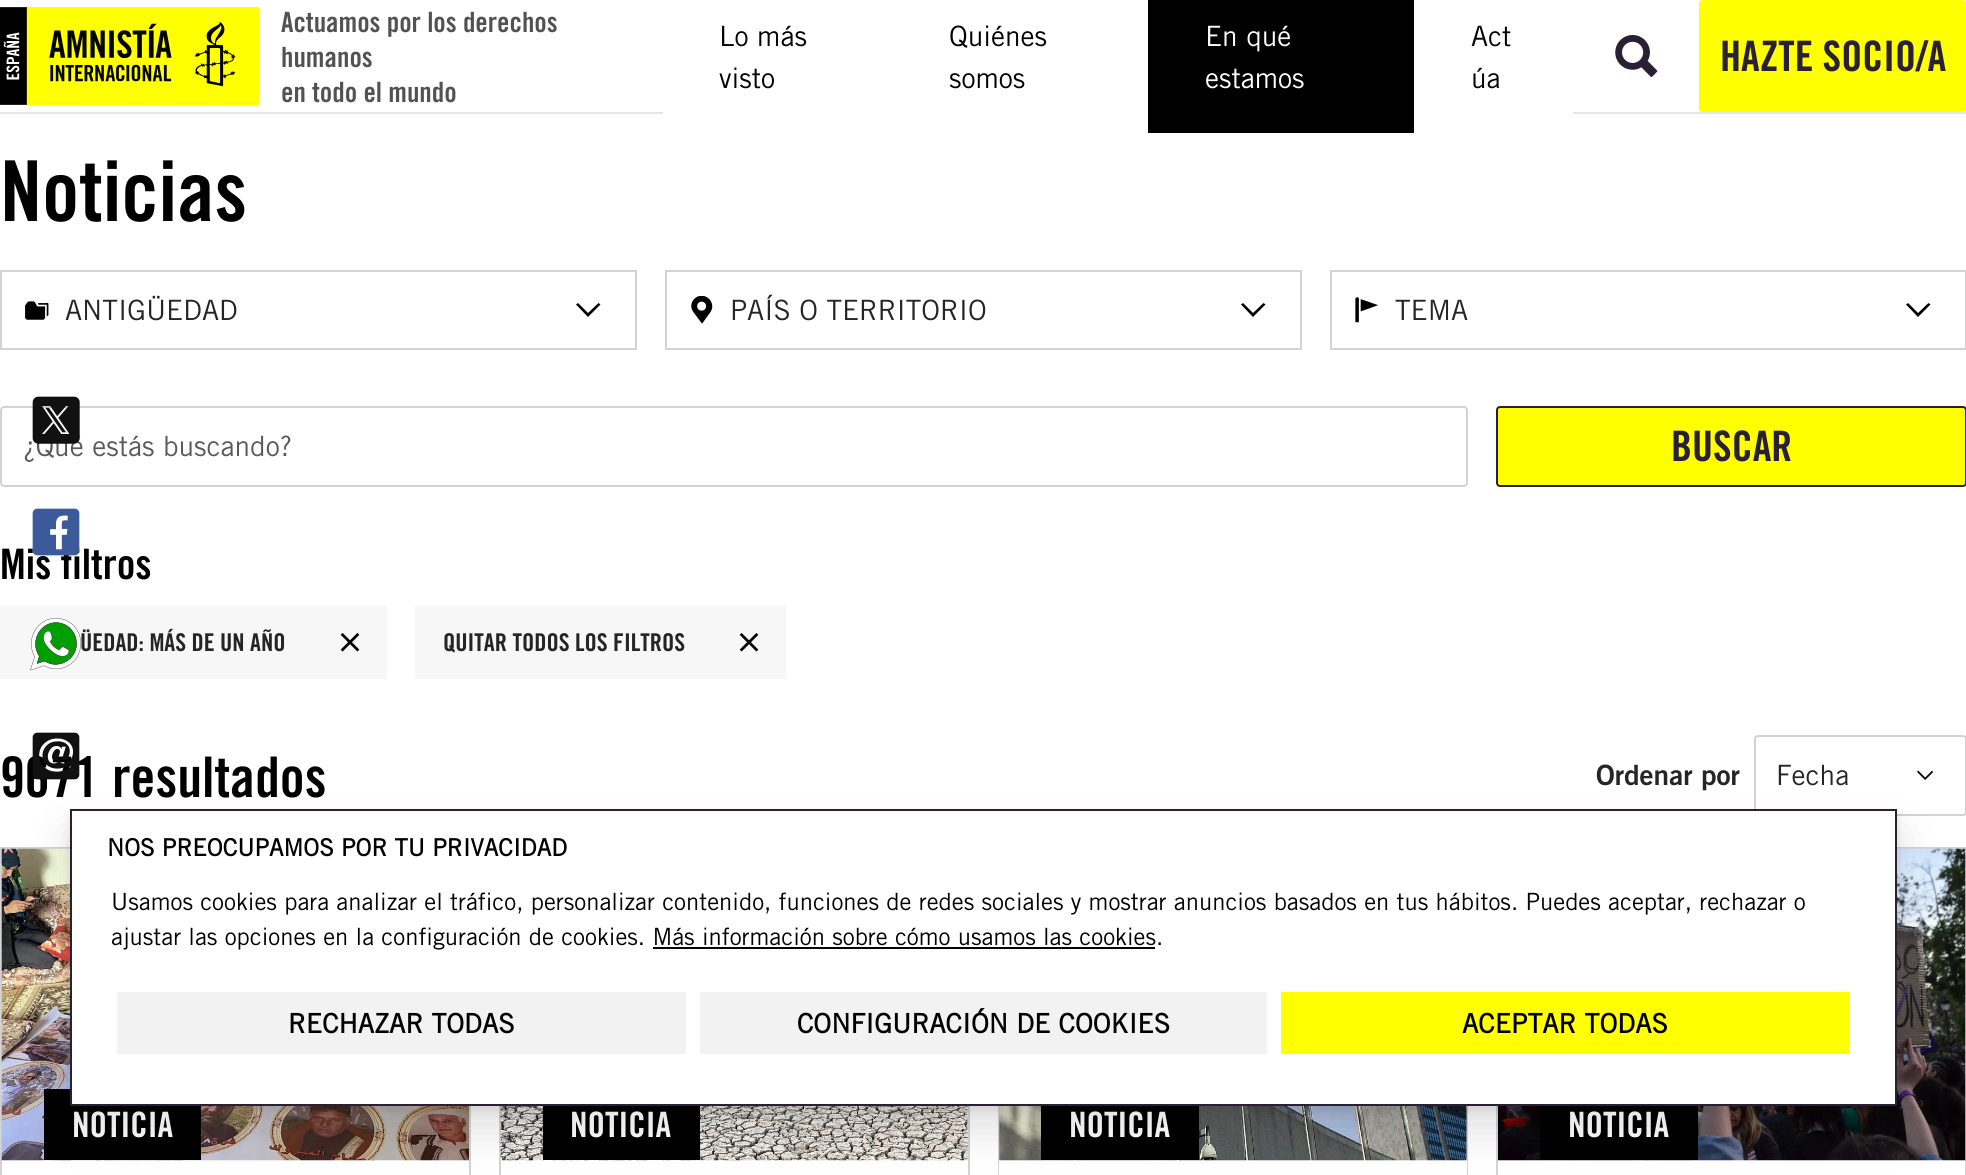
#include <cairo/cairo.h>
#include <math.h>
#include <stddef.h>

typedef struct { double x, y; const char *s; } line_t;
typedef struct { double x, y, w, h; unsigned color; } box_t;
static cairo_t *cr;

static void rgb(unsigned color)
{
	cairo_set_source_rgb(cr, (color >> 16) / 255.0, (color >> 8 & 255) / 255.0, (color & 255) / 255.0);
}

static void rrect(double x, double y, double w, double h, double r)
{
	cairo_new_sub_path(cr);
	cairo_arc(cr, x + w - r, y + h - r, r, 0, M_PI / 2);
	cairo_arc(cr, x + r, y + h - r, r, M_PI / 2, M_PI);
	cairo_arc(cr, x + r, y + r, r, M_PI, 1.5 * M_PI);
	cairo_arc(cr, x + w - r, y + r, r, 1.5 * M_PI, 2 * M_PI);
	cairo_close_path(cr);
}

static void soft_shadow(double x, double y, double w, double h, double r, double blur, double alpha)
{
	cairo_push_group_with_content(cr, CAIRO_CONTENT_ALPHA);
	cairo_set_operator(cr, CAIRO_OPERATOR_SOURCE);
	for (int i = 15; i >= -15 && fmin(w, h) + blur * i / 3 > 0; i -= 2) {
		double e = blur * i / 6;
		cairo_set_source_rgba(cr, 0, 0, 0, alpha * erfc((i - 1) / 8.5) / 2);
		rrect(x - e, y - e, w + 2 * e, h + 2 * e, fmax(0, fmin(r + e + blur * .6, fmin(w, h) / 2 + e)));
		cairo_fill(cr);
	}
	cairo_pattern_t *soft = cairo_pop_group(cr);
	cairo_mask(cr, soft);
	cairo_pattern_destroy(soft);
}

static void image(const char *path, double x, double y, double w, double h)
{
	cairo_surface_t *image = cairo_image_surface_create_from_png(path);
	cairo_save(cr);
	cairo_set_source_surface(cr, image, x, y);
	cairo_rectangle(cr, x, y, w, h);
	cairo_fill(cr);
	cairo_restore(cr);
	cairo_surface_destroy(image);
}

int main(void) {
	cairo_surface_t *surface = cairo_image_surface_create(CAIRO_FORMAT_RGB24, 1966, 1175);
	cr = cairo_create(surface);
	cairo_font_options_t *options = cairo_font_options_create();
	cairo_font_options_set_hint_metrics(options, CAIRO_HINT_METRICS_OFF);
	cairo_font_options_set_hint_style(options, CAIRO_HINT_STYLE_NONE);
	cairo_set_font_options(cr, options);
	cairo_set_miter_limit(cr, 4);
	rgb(0xffffff);
	cairo_paint(cr);
	rgb(0xe6e6e6);
	cairo_rectangle(cr, 0, 112, 1966, 2);
	cairo_fill(cr);
	image("img/1.png", 0, 7, 259, 98);
	{
		static const box_t items[] = {
			{663, 112, 485, 2, 0xffffff},
			{1148, 0, 266, 133, 0x000000},
			{1414, 112, 159, 2, 0xffffff},
		};
		for (size_t i = 0; i < sizeof items / sizeof *items; i++) {
			rgb(items[i].color);
			cairo_rectangle(cr, items[i].x, items[i].y, items[i].w, items[i].h);
			cairo_fill(cr);
		}
	}
	image("img/2.png", 1615, 35, 43, 42);
	rgb(0xffff00);
	rrect(1699, 0, 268, 112, 4);
	cairo_fill(cr);
	cairo_rectangle(cr, 1, 271, 635, 78);
	rgb(0xd3d3d3);
	cairo_stroke(cr);
	image("img/3.png", 25, 301, 24, 19);
	rgb(0x000000);
	cairo_new_path(cr);
	cairo_move_to(cr, 600.5, 304.5);
	cairo_line_to(cr, 588, 317);
	cairo_line_to(cr, 576, 304.5);
	cairo_line_to(cr, 578, 303);
	cairo_line_to(cr, 588, 313);
	cairo_line_to(cr, 598.5, 303);
	cairo_close_path(cr);
	cairo_fill(cr);
	cairo_rectangle(cr, 666, 271, 635, 78);
	rgb(0xd3d3d3);
	cairo_stroke(cr);
	image("img/4.png", 691, 296, 22, 28);
	rgb(0x000000);
	cairo_new_path(cr);
	cairo_move_to(cr, 1265.5, 304.5);
	cairo_line_to(cr, 1253, 317);
	cairo_line_to(cr, 1241, 304.5);
	cairo_line_to(cr, 1243, 303);
	cairo_line_to(cr, 1253, 313);
	cairo_line_to(cr, 1263.5, 303);
	cairo_close_path(cr);
	cairo_fill(cr);
	cairo_rectangle(cr, 1331, 271, 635, 78);
	rgb(0xd3d3d3);
	cairo_stroke(cr);
	image("img/5.png", 1355, 297, 23, 26);
	rgb(0x000000);
	cairo_new_path(cr);
	cairo_move_to(cr, 1930.5, 304.5);
	cairo_line_to(cr, 1918, 317);
	cairo_line_to(cr, 1906, 304.5);
	cairo_line_to(cr, 1908, 303);
	cairo_line_to(cr, 1918, 313);
	cairo_line_to(cr, 1928.5, 303);
	cairo_close_path(cr);
	cairo_fill(cr);
	rrect(1, 407, 1466, 79, 3);
	rgb(0xd3d3d3);
	cairo_stroke(cr);
	rgb(0xffff00);
	rrect(1497, 407, 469, 79, 3);
	cairo_fill_preserve(cr);
	rgb(0x2a2034);
	cairo_stroke(cr);
	rgb(0xf7f7f7);
	cairo_rectangle(cr, 0, 606, 387, 73);
	cairo_fill(cr);
	image("img/6.png", 340, 633, 20, 19);
	cairo_rectangle(cr, 415, 606, 371, 73);
	cairo_fill(cr);
	image("img/6.png", 739, 633, 20, 19);
	rrect(1755, 736, 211, 79, 3);
	rgb(0xd3d3d3);
	cairo_stroke(cr);
	image("img/7.png", 1917, 770, 17, 10);
	cairo_rectangle(cr, 1, 848, 469, 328);
	cairo_stroke(cr);
	image("img/8.png", 1, 848, 468, 313);
	rgb(0x000000);
	cairo_rectangle(cr, 44, 1089, 157, 71);
	cairo_fill(cr);
	cairo_rectangle(cr, 500, 848, 469, 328);
	rgb(0xd3d3d3);
	cairo_stroke(cr);
	image("img/9.png", 500, 1106, 468, 55);
	rgb(0x000000);
	cairo_rectangle(cr, 543, 1106, 157, 54);
	cairo_fill(cr);
	cairo_rectangle(cr, 999, 848, 468, 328);
	rgb(0xd3d3d3);
	cairo_stroke(cr);
	rgb(0xffffff);
	cairo_rectangle(cr, 999, 1160, 468, 15);
	cairo_fill(cr);
	image("img/10.png", 999, 1106, 468, 55);
	rgb(0x000000);
	cairo_rectangle(cr, 1041, 1106, 158, 54);
	cairo_fill(cr);
	cairo_rectangle(cr, 1497, 848, 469, 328);
	rgb(0xd3d3d3);
	cairo_stroke(cr);
	image("img/11.png", 1498, 848, 468, 313);
	rgb(0x000000);
	cairo_rectangle(cr, 1540, 1106, 158, 54);
	cairo_fill(cr);
	image("img/14.png", 30, 618, 51, 53);
	rgb(0x000000);
	soft_shadow(70, 814, 1827, 297, 0, 5, 0.08);
	cairo_select_font_face(cr, "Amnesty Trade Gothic", CAIRO_FONT_SLANT_NORMAL, CAIRO_FONT_WEIGHT_BOLD);
	cairo_set_font_size(cr, 28);
	rgb(0x525252);
	{
		static const line_t items[] = {
			{281, 32, "Actuamos por los derechos"},
			{281, 67, "humanos"},
			{281, 102, "en todo el mundo"},
		};
		for (size_t i = 0; i < sizeof items / sizeof *items; i++) {
			cairo_move_to(cr, items[i].x, items[i].y);
			cairo_show_text(cr, items[i].s);
		}
	}
	cairo_select_font_face(cr, "Amnesty Trade Gothic", CAIRO_FONT_SLANT_NORMAL, CAIRO_FONT_WEIGHT_NORMAL);
	rgb(0x000000);
	{
		static const line_t items[] = {
			{719, 46, "Lo más"},
			{719, 88, "visto"},
			{949, 46, "Quiénes"},
			{949, 88, "somos"},
		};
		for (size_t i = 0; i < sizeof items / sizeof *items; i++) {
			cairo_move_to(cr, items[i].x, items[i].y);
			cairo_show_text(cr, items[i].s);
		}
	}
	rgb(0xffffff);
	cairo_move_to(cr, 1205, 46);
	cairo_show_text(cr, "En qué");
	cairo_move_to(cr, 1205, 88);
	cairo_show_text(cr, "estamos");
	rgb(0x000000);
	cairo_move_to(cr, 1471, 46);
	cairo_show_text(cr, "Act");
	cairo_move_to(cr, 1471, 88);
	cairo_show_text(cr, "úa");
	cairo_select_font_face(cr, "Amnesty Trade Gothic", CAIRO_FONT_SLANT_NORMAL, CAIRO_FONT_WEIGHT_BOLD);
	cairo_set_font_size(cr, 42);
	rgb(0x2a2034);
	cairo_move_to(cr, 1720, 71);
	cairo_show_text(cr, "HAZTE SOCIO/A");
	cairo_set_font_size(cr, 84);
	rgb(0x000000);
	cairo_move_to(cr, 0, 221);
	cairo_show_text(cr, "Noticias");
	cairo_select_font_face(cr, "Amnesty Trade Gothic", CAIRO_FONT_SLANT_NORMAL, CAIRO_FONT_WEIGHT_NORMAL);
	cairo_set_font_size(cr, 28);
	rgb(0x252525);
	{
		static const line_t items[] = {
			{65, 320, "ANTIGÜEDAD"},
			{730, 320, "PAÍS O TERRITORIO"},
			{1395, 320, "TEMA"},
		};
		for (size_t i = 0; i < sizeof items / sizeof *items; i++) {
			cairo_move_to(cr, items[i].x, items[i].y);
			cairo_show_text(cr, items[i].s);
		}
	}
	rgb(0x595959);
	cairo_move_to(cr, 23, 456);
	cairo_show_text(cr, "¿Qué estás buscando?");
	cairo_select_font_face(cr, "Amnesty Trade Gothic", CAIRO_FONT_SLANT_NORMAL, CAIRO_FONT_WEIGHT_BOLD);
	cairo_set_font_size(cr, 42);
	rgb(0x2a2034);
	cairo_move_to(cr, 1671, 461);
	cairo_show_text(cr, "BUSCAR");
	rgb(0x000000);
	cairo_move_to(cr, 0, 579);
	cairo_show_text(cr, "Mis filtros");
	cairo_set_font_size(cr, 24.5);
	rgb(0x252525);
	cairo_move_to(cr, 80, 651);
	cairo_show_text(cr, "ÜEDAD: MÁS DE UN AÑO");
	cairo_move_to(cr, 443, 651);
	cairo_show_text(cr, "QUITAR TODOS LOS FILTROS");
	cairo_set_font_size(cr, 56);
	rgb(0x000000);
	cairo_move_to(cr, 0, 797);
	cairo_show_text(cr, "9671 resultados");
	cairo_select_font_face(cr, "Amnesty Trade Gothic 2", CAIRO_FONT_SLANT_NORMAL, CAIRO_FONT_WEIGHT_BOLD);
	cairo_set_font_size(cr, 28);
	rgb(0x252525);
	cairo_move_to(cr, 1596, 785);
	cairo_show_text(cr, "Ordenar por");
	cairo_select_font_face(cr, "Amnesty Trade Gothic", CAIRO_FONT_SLANT_NORMAL, CAIRO_FONT_WEIGHT_NORMAL);
	cairo_move_to(cr, 1776, 785);
	cairo_show_text(cr, "Fecha");
	cairo_select_font_face(cr, "Amnesty Trade Gothic", CAIRO_FONT_SLANT_NORMAL, CAIRO_FONT_WEIGHT_BOLD);
	cairo_set_font_size(cr, 35);
	rgb(0xffffff);
	{
		static const line_t items[] = {
			{72, 1137, "NOTICIA"},
			{570, 1137, "NOTICIA"},
			{1069, 1137, "NOTICIA"},
			{1568, 1137, "NOTICIA"},
		};
		for (size_t i = 0; i < sizeof items / sizeof *items; i++) {
			cairo_move_to(cr, items[i].x, items[i].y);
			cairo_show_text(cr, items[i].s);
		}
	}
	image("img/12.png", 32, 396, 48, 48);
	image("img/13.png", 32, 508, 48, 48);
	image("img/15.png", 32, 732, 48, 48);
	rgb(0x000000);
	soft_shadow(70, 833, 1827, 298, 0, 22, 0.12);
	rgb(0xffffff);
	cairo_rectangle(cr, 71, 810, 1825, 295);
	cairo_fill_preserve(cr);
	rgb(0x2a2034);
	cairo_stroke(cr);
	cairo_select_font_face(cr, "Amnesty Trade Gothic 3", CAIRO_FONT_SLANT_NORMAL, CAIRO_FONT_WEIGHT_BOLD);
	cairo_set_font_size(cr, 23.8);
	rgb(0x000000);
	cairo_move_to(cr, 107, 856);
	cairo_show_text(cr, "NOS PREOCUPAMOS POR TU PRIVACIDAD");
	cairo_select_font_face(cr, "Amnesty Trade Gothic", CAIRO_FONT_SLANT_NORMAL, CAIRO_FONT_WEIGHT_NORMAL);
	cairo_move_to(cr, 111, 910);
	cairo_show_text(cr, "Usamos cookies para analizar el tráfico, personalizar contenido, funciones de redes sociales y mostrar anuncios basados en tus hábitos. Puedes aceptar, rechazar o");
	cairo_move_to(cr, 111, 945);
	cairo_show_text(cr, "ajustar las opciones en la configuración de cookies. Más información sobre cómo usamos las cookies.");
	cairo_rectangle(cr, 653, 947, 502, 2);
	cairo_fill(cr);
	rgb(0xf2f2f2);
	cairo_rectangle(cr, 117, 992, 569, 62);
	cairo_fill(cr);
	cairo_select_font_face(cr, "Amnesty Trade Gothic 3", CAIRO_FONT_SLANT_NORMAL, CAIRO_FONT_WEIGHT_BOLD);
	cairo_set_font_size(cr, 26.75);
	rgb(0x000000);
	cairo_move_to(cr, 288, 1033);
	cairo_show_text(cr, "RECHAZAR TODAS");
	rgb(0xf2f2f2);
	cairo_rectangle(cr, 700, 992, 567, 62);
	cairo_fill(cr);
	rgb(0x000000);
	cairo_move_to(cr, 797, 1033);
	cairo_show_text(cr, "CONFIGURACIÓN DE COOKIES");
	rgb(0xffff00);
	cairo_rectangle(cr, 1281, 992, 569, 62);
	cairo_fill(cr);
	rgb(0x000000);
	cairo_move_to(cr, 1462, 1033);
	cairo_show_text(cr, "ACEPTAR TODAS");
	cairo_surface_write_to_png(surface, "page.png");
	cairo_font_options_destroy(options);
	cairo_destroy(cr);
	cairo_surface_destroy(surface);
	return 0;
}
